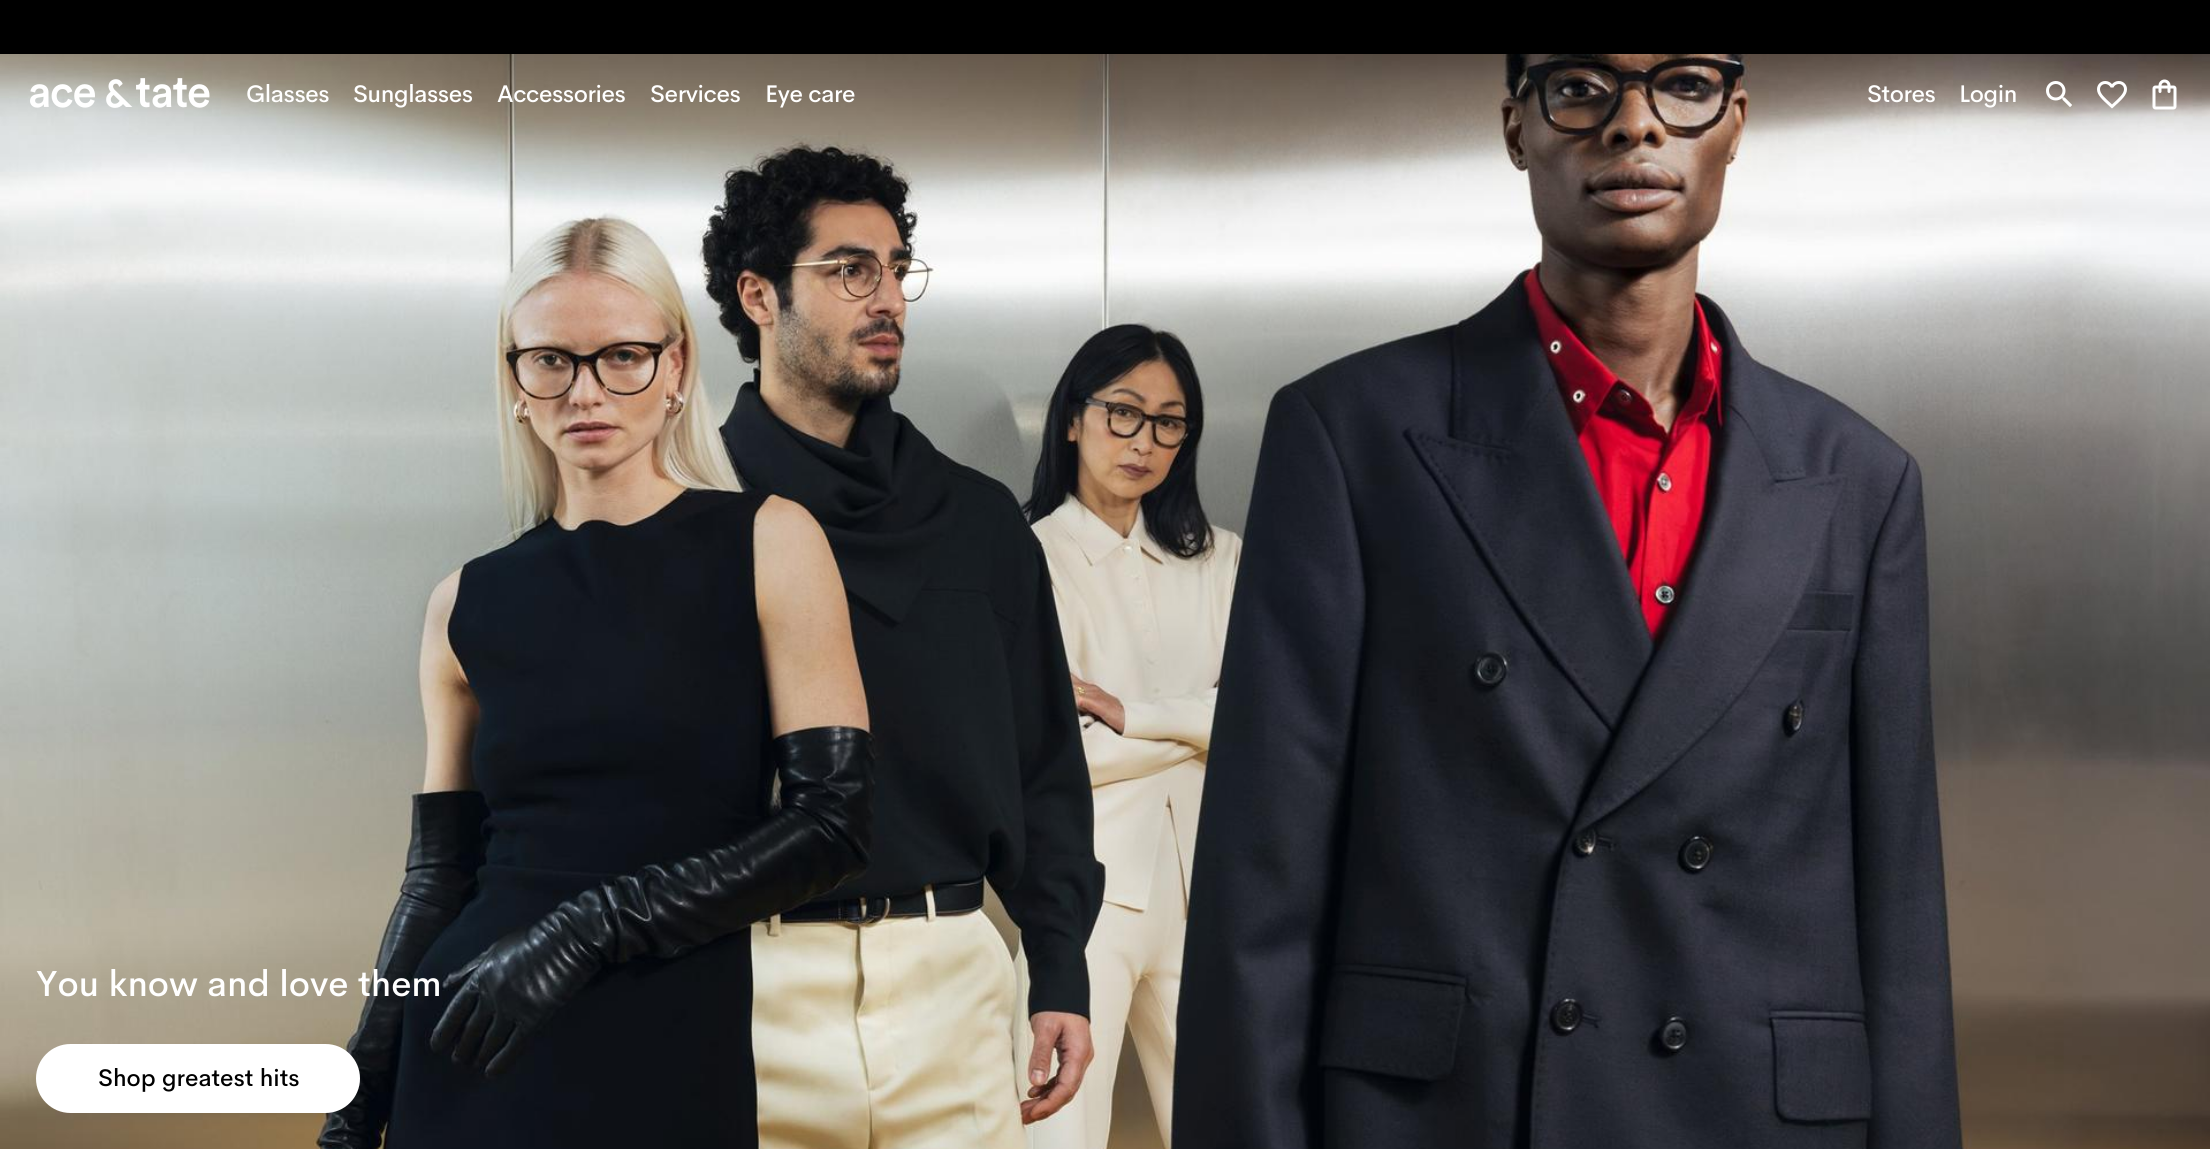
#include <cairo/cairo.h>
#include <math.h>
#include <stddef.h>

typedef struct { double x, y; const char *s; } line_t;
static cairo_t *cr;

static void rgb(unsigned color)
{
	cairo_set_source_rgb(cr, (color >> 16) / 255.0, (color >> 8 & 255) / 255.0, (color & 255) / 255.0);
}

static void tracked(double x, double y, const char *s, double letter, double word)
{
	cairo_move_to(cr, x, y);
	while (*s) {
		char ch[5] = {0};
		int n = 0;
		do ch[n++] = *s++; while ((*s & 0xC0) == 0x80);
		cairo_show_text(cr, ch);
		cairo_rel_move_to(cr, letter + word * (*ch == ' '), 0);
	}
}

static void rrect(double x, double y, double w, double h, double r)
{
	cairo_new_sub_path(cr);
	cairo_arc(cr, x + w - r, y + h - r, r, 0, M_PI / 2);
	cairo_arc(cr, x + r, y + h - r, r, M_PI / 2, M_PI);
	cairo_arc(cr, x + r, y + r, r, M_PI, 1.5 * M_PI);
	cairo_arc(cr, x + w - r, y + r, r, 1.5 * M_PI, 2 * M_PI);
	cairo_close_path(cr);
}

static void image(const char *path, double x, double y, double w, double h)
{
	cairo_surface_t *image = cairo_image_surface_create_from_png(path);
	cairo_save(cr);
	cairo_set_source_surface(cr, image, x, y);
	cairo_rectangle(cr, x, y, w, h);
	cairo_fill(cr);
	cairo_restore(cr);
	cairo_surface_destroy(image);
}

int main(void) {
	cairo_surface_t *surface = cairo_image_surface_create(CAIRO_FORMAT_RGB24, 2210, 1149);
	cr = cairo_create(surface);
	cairo_font_options_t *options = cairo_font_options_create();
	cairo_font_options_set_hint_metrics(options, CAIRO_HINT_METRICS_OFF);
	cairo_font_options_set_hint_style(options, CAIRO_HINT_STYLE_NONE);
	cairo_set_font_options(cr, options);
	cairo_set_miter_limit(cr, 4);
	rgb(0x000000);
	cairo_paint(cr);
	image("img/5.png", 0, 54, 2210, 1095);
	image("img/1.png", 30, 78, 180, 30);
	image("img/2.png", 2046, 81, 26, 26);
	image("img/3.png", 2097, 81, 30, 28);
	image("img/4.png", 2152, 79, 25, 31);
	rgb(0xffffff);
	rrect(36, 1044, 324, 69, 34.5);
	cairo_fill(cr);
	cairo_select_font_face(cr, "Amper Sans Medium", CAIRO_FONT_SLANT_NORMAL, CAIRO_FONT_WEIGHT_NORMAL);
	cairo_set_font_size(cr, 24);
	{
		static const line_t items[] = {
			{246, 102, "Glasses"},
			{353, 102, "Sunglasses"},
			{497, 102, "Accessories"},
			{650, 102, "Services"},
			{765, 102, "Eye care"},
			{1867, 102, "Stores"},
			{1959, 102, "Login"},
		};
		for (size_t i = 0; i < sizeof items / sizeof *items; i++) {
			tracked(items[i].x, items[i].y, items[i].s, -0.4, 0);
		}
	}
	cairo_set_font_size(cr, 36);
	cairo_move_to(cr, 36, 996);
	cairo_show_text(cr, "You know and love them");
	cairo_set_font_size(cr, 24);
	rgb(0x000000);
	cairo_move_to(cr, 98, 1086);
	cairo_show_text(cr, "Shop greatest hits");
	cairo_surface_write_to_png(surface, "page.png");
	cairo_font_options_destroy(options);
	cairo_destroy(cr);
	cairo_surface_destroy(surface);
	return 0;
}
